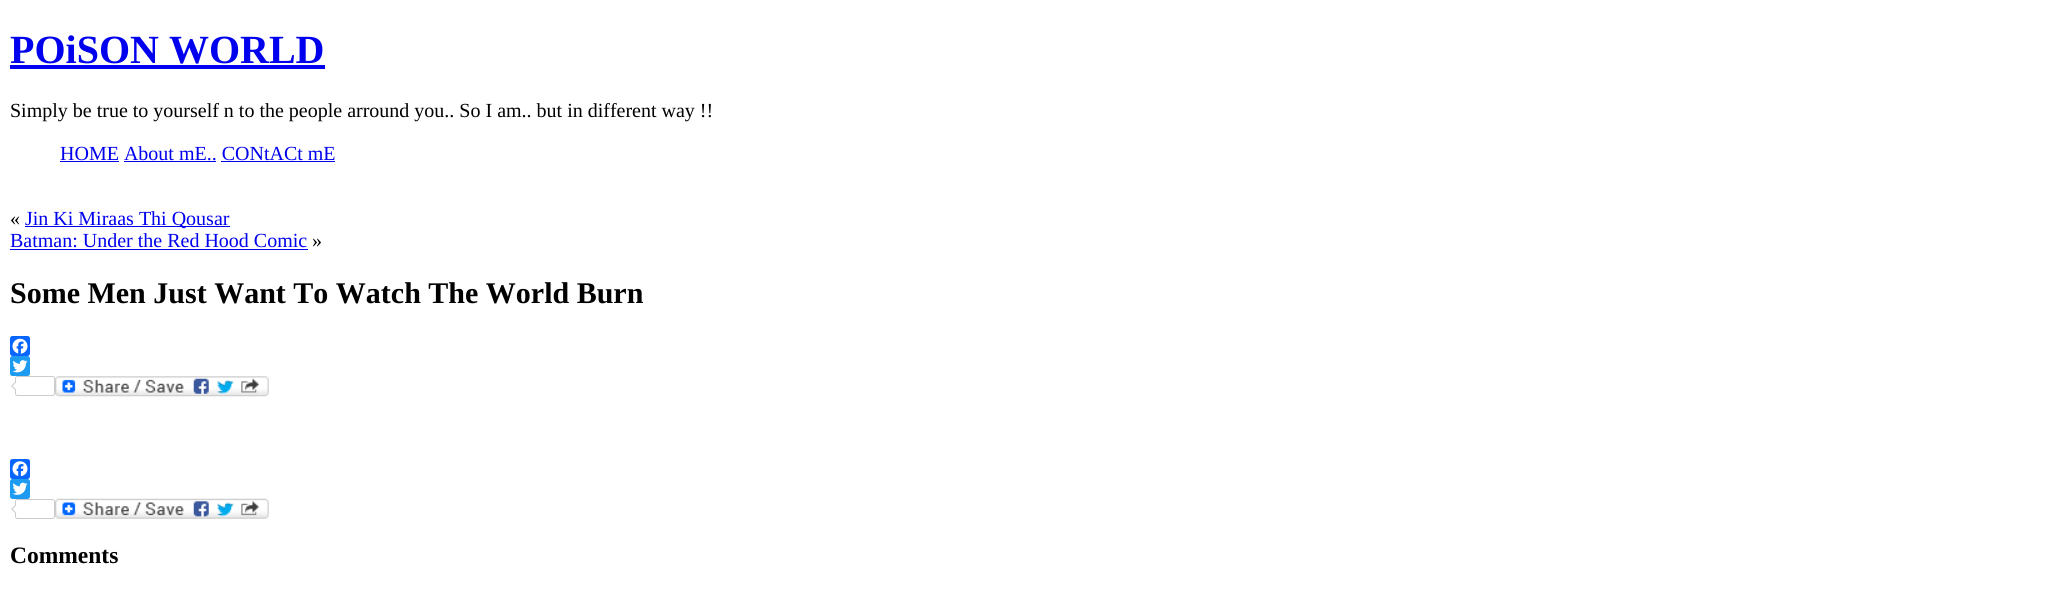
#include <cairo/cairo.h>
#include <math.h>
#include <stddef.h>

typedef struct { double x, y, w, h; unsigned color; } box_t;
static cairo_t *cr;

static void rgb(unsigned color)
{
	cairo_set_source_rgb(cr, (color >> 16) / 255.0, (color >> 8 & 255) / 255.0, (color & 255) / 255.0);
}

static void rrect(double x, double y, double w, double h, double r)
{
	cairo_new_sub_path(cr);
	cairo_arc(cr, x + w - r, y + h - r, r, 0, M_PI / 2);
	cairo_arc(cr, x + r, y + h - r, r, M_PI / 2, M_PI);
	cairo_arc(cr, x + r, y + r, r, M_PI, 1.5 * M_PI);
	cairo_arc(cr, x + w - r, y + r, r, 1.5 * M_PI, 2 * M_PI);
	cairo_close_path(cr);
}

static void image(const char *path, double x, double y, double w, double h)
{
	cairo_surface_t *image = cairo_image_surface_create_from_png(path);
	cairo_save(cr);
	cairo_set_source_surface(cr, image, x, y);
	cairo_rectangle(cr, x, y, w, h);
	cairo_fill(cr);
	cairo_restore(cr);
	cairo_surface_destroy(image);
}

int main(void) {
	cairo_surface_t *surface = cairo_image_surface_create(CAIRO_FORMAT_RGB24, 2058, 596);
	cr = cairo_create(surface);
	cairo_font_options_t *options = cairo_font_options_create();
	cairo_font_options_set_hint_metrics(options, CAIRO_HINT_METRICS_OFF);
	cairo_font_options_set_hint_style(options, CAIRO_HINT_STYLE_NONE);
	cairo_set_font_options(cr, options);
	cairo_set_miter_limit(cr, 4);
	rgb(0xffffff);
	cairo_paint(cr);
	{
		static const box_t items[] = {
			{10, 65, 315, 4, 0x0000ee},
			{60, 161, 59, 1, 0x0000ee},
			{124, 161, 92, 1, 0x0000ee},
			{221, 161, 114, 1, 0x0000ee},
			{25, 226, 205, 1, 0x0000ee},
			{10, 249, 298, 1, 0x0000ee},
		};
		for (size_t i = 0; i < sizeof items / sizeof *items; i++) {
			rgb(items[i].color);
			cairo_rectangle(cr, items[i].x, items[i].y, items[i].w, items[i].h);
			cairo_fill(cr);
		}
	}
	rgb(0x0866ff);
	rrect(10, 336, 20, 20, 2.5);
	cairo_fill(cr);
	image("img/1.png", 12, 338, 16, 16);
	rgb(0x1d9bf0);
	rrect(10, 356, 20, 20, 2.5);
	cairo_fill(cr);
	image("img/2.png", 12, 360, 16, 13);
	rrect(15.5, 376.5, 39, 19, 2);
	rgb(0xcccccc);
	cairo_set_line_width(cr, 1);
	cairo_stroke(cr);
	cairo_new_path(cr);
	cairo_move_to(cr, 16, 381);
	cairo_line_to(cr, 16, 391);
	cairo_line_to(cr, 11, 386);
	cairo_close_path(cr);
	cairo_fill(cr);
	rgb(0xffffff);
	cairo_new_path(cr);
	cairo_move_to(cr, 17.5, 381);
	cairo_line_to(cr, 17.5, 391);
	cairo_line_to(cr, 12.5, 386);
	cairo_close_path(cr);
	cairo_fill(cr);
	image("img/3.png", 55, 376, 214, 21);
	rgb(0x0866ff);
	rrect(10, 459, 20, 20, 2.5);
	cairo_fill(cr);
	image("img/4.png", 12, 461, 16, 16);
	rgb(0x1d9bf0);
	rrect(10, 479, 20, 20, 2.5);
	cairo_fill(cr);
	image("img/5.png", 12, 482, 16, 13);
	rrect(15.5, 499.5, 39, 19, 2);
	rgb(0xcccccc);
	cairo_stroke(cr);
	cairo_new_path(cr);
	cairo_move_to(cr, 16, 504);
	cairo_line_to(cr, 16, 514);
	cairo_line_to(cr, 11, 509);
	cairo_close_path(cr);
	cairo_fill(cr);
	rgb(0xffffff);
	cairo_new_path(cr);
	cairo_move_to(cr, 17.5, 504);
	cairo_line_to(cr, 17.5, 514);
	cairo_line_to(cr, 12.5, 509);
	cairo_close_path(cr);
	cairo_fill(cr);
	image("img/6.png", 55, 498, 214, 21);
	cairo_select_font_face(cr, "Liberation Serif", CAIRO_FONT_SLANT_NORMAL, CAIRO_FONT_WEIGHT_BOLD);
	cairo_set_font_size(cr, 40);
	rgb(0x0000ee);
	cairo_move_to(cr, 10, 63);
	cairo_show_text(cr, "POiSON WORLD");
	cairo_select_font_face(cr, "Liberation Serif", CAIRO_FONT_SLANT_NORMAL, CAIRO_FONT_WEIGHT_NORMAL);
	cairo_set_font_size(cr, 20);
	rgb(0x000000);
	cairo_move_to(cr, 10, 117);
	cairo_show_text(cr, "Simply be true to yourself n to the people arround you.. So I am.. but in different way !!");
	rgb(0x0000ee);
	cairo_move_to(cr, 60, 160);
	cairo_show_text(cr, "HOME About mE.. CONtACt mE");
	rgb(0x000000);
	cairo_move_to(cr, 10, 225);
	cairo_show_text(cr, "«");
	rgb(0x0000ee);
	cairo_move_to(cr, 25, 225);
	cairo_show_text(cr, "Jin Ki Miraas Thi Qousar");
	cairo_move_to(cr, 10, 247);
	cairo_show_text(cr, "Batman: Under the Red Hood Comic");
	rgb(0x000000);
	cairo_move_to(cr, 312, 247);
	cairo_show_text(cr, "»");
	cairo_select_font_face(cr, "Liberation Serif", CAIRO_FONT_SLANT_NORMAL, CAIRO_FONT_WEIGHT_BOLD);
	cairo_set_font_size(cr, 30);
	cairo_move_to(cr, 10, 303);
	cairo_show_text(cr, "Some Men Just Want To Watch The World Burn");
	cairo_set_font_size(cr, 23.5);
	cairo_move_to(cr, 10, 563);
	cairo_show_text(cr, "Comments");
	cairo_surface_write_to_png(surface, "page.png");
	cairo_font_options_destroy(options);
	cairo_destroy(cr);
	cairo_surface_destroy(surface);
	return 0;
}
